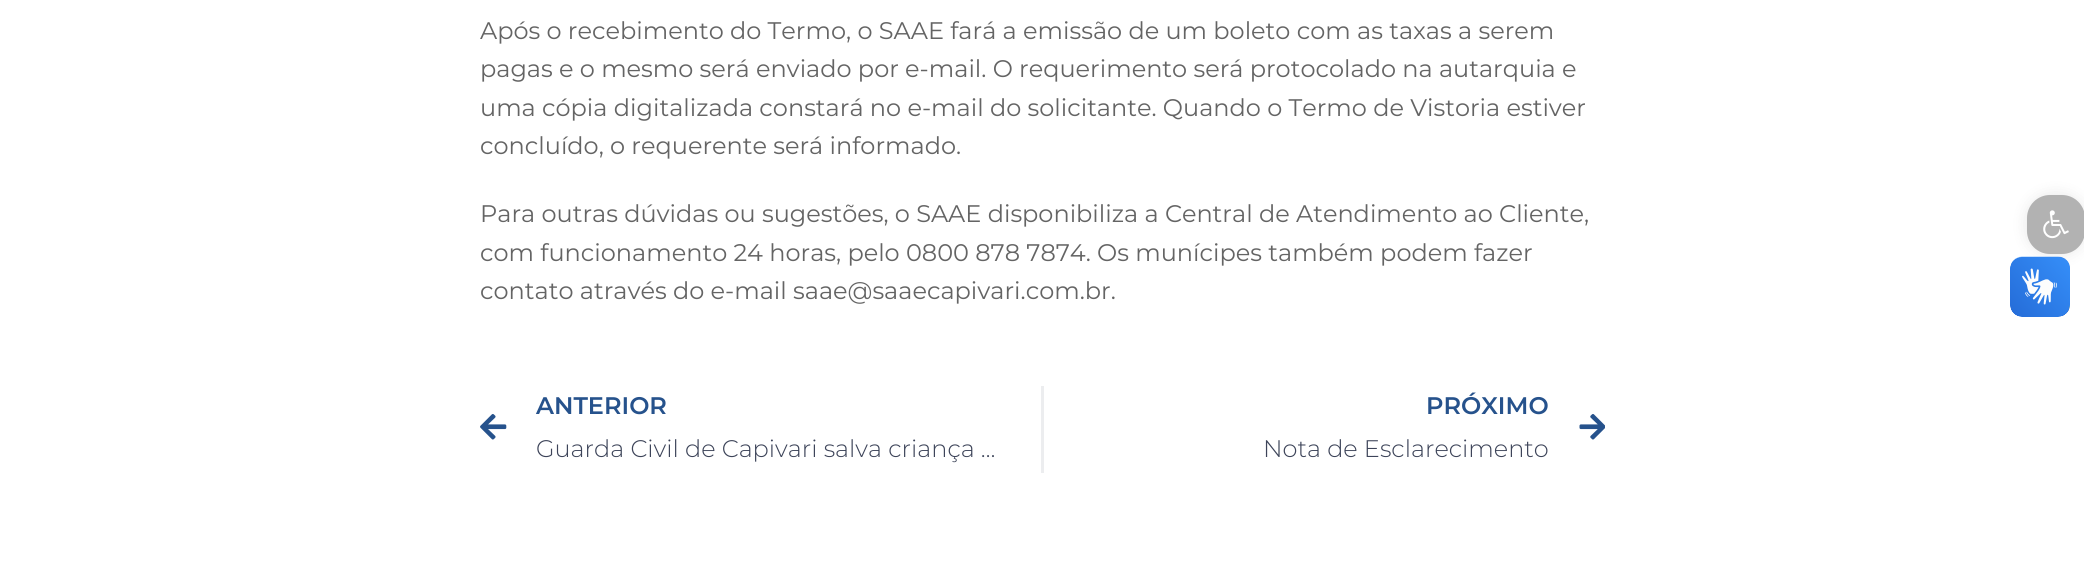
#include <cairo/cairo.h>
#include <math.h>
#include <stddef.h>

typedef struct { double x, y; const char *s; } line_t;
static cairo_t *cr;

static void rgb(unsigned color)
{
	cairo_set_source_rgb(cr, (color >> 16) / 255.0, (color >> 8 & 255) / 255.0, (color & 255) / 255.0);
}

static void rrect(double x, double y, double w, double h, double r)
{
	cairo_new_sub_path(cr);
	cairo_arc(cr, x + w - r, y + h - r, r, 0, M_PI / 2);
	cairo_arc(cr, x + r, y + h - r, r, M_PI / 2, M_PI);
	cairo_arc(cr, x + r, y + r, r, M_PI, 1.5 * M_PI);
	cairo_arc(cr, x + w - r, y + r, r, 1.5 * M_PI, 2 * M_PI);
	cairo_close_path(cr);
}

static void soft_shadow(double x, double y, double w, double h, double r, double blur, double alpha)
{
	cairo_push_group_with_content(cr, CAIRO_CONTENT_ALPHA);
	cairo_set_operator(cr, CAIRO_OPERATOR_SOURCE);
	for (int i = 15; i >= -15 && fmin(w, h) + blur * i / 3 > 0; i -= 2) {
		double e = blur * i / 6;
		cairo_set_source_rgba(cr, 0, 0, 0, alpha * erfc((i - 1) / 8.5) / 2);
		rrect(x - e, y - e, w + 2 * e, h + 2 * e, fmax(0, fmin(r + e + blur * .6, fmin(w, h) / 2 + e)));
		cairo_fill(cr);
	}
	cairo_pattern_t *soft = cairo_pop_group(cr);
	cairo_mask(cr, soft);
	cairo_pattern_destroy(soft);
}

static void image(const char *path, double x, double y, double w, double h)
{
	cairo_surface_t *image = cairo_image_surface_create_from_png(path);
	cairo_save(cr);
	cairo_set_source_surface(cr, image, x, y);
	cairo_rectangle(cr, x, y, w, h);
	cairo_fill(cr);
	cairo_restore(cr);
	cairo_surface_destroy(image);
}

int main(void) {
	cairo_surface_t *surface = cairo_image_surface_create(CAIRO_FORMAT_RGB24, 2084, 571);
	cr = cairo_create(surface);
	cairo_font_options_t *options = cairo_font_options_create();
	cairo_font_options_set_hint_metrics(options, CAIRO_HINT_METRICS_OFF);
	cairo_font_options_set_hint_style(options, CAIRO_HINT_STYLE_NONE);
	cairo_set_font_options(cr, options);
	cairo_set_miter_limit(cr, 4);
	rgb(0xffffff);
	cairo_paint(cr);
	image("img/1.png", 480, 414, 27, 26);
	rgb(0xecedef);
	cairo_rectangle(cr, 1041, 386, 3, 87);
	cairo_fill(cr);
	image("img/2.png", 1579, 414, 26, 26);
	rgb(0x000000);
	soft_shadow(2027, 195, 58, 59, 23, 7.5, 0.1);
	rgb(0xb2b2b2);
	rrect(2027, 195, 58, 59, 23);
	cairo_fill(cr);
	image("img/3.png", 2043, 210, 26, 29);
	image("img/4.png", 2010, 256, 60, 61);
	image("img/5.png", 2010, 257, 60, 60);
	cairo_select_font_face(cr, "Montserrat", CAIRO_FONT_SLANT_NORMAL, CAIRO_FONT_WEIGHT_NORMAL);
	cairo_set_font_size(cr, 24);
	rgb(0x646464);
	{
		static const line_t items[] = {
			{480, 39, "Após o recebimento do Termo, o SAAE fará a emissão de um boleto com as taxas a serem"},
			{480, 77, "pagas e o mesmo será enviado por e-mail. O requerimento será protocolado na autarquia e"},
			{480, 116, "uma cópia digitalizada constará no e-mail do solicitante. Quando o Termo de Vistoria estiver"},
			{480, 154, "concluído, o requerente será informado."},
			{480, 222, "Para outras dúvidas ou sugestões, o SAAE disponibiliza a Central de Atendimento ao Cliente,"},
			{480, 261, "com funcionamento 24 horas, pelo 0800 878 7874. Os munícipes também podem fazer"},
			{480, 299, "contato através do e-mail saae@saaecapivari.com.br."},
		};
		for (size_t i = 0; i < sizeof items / sizeof *items; i++) {
			cairo_move_to(cr, items[i].x, items[i].y);
			cairo_show_text(cr, items[i].s);
		}
	}
	cairo_select_font_face(cr, "Montserrat SemiBold", CAIRO_FONT_SLANT_NORMAL, CAIRO_FONT_WEIGHT_NORMAL);
	rgb(0x26528c);
	cairo_move_to(cr, 536, 414);
	cairo_show_text(cr, "ANTERIOR");
	cairo_select_font_face(cr, "Montserrat Light", CAIRO_FONT_SLANT_NORMAL, CAIRO_FONT_WEIGHT_NORMAL);
	rgb(0x3d4459);
	cairo_move_to(cr, 536, 457);
	cairo_show_text(cr, "Guarda Civil de Capivari salva criança …");
	cairo_select_font_face(cr, "Montserrat SemiBold", CAIRO_FONT_SLANT_NORMAL, CAIRO_FONT_WEIGHT_NORMAL);
	rgb(0x26528c);
	cairo_move_to(cr, 1426, 414);
	cairo_show_text(cr, "PRÓXIMO");
	cairo_select_font_face(cr, "Montserrat Light", CAIRO_FONT_SLANT_NORMAL, CAIRO_FONT_WEIGHT_NORMAL);
	rgb(0x3d4459);
	cairo_move_to(cr, 1263, 457);
	cairo_show_text(cr, "Nota de Esclarecimento");
	cairo_surface_write_to_png(surface, "page.png");
	cairo_font_options_destroy(options);
	cairo_destroy(cr);
	cairo_surface_destroy(surface);
	return 0;
}
